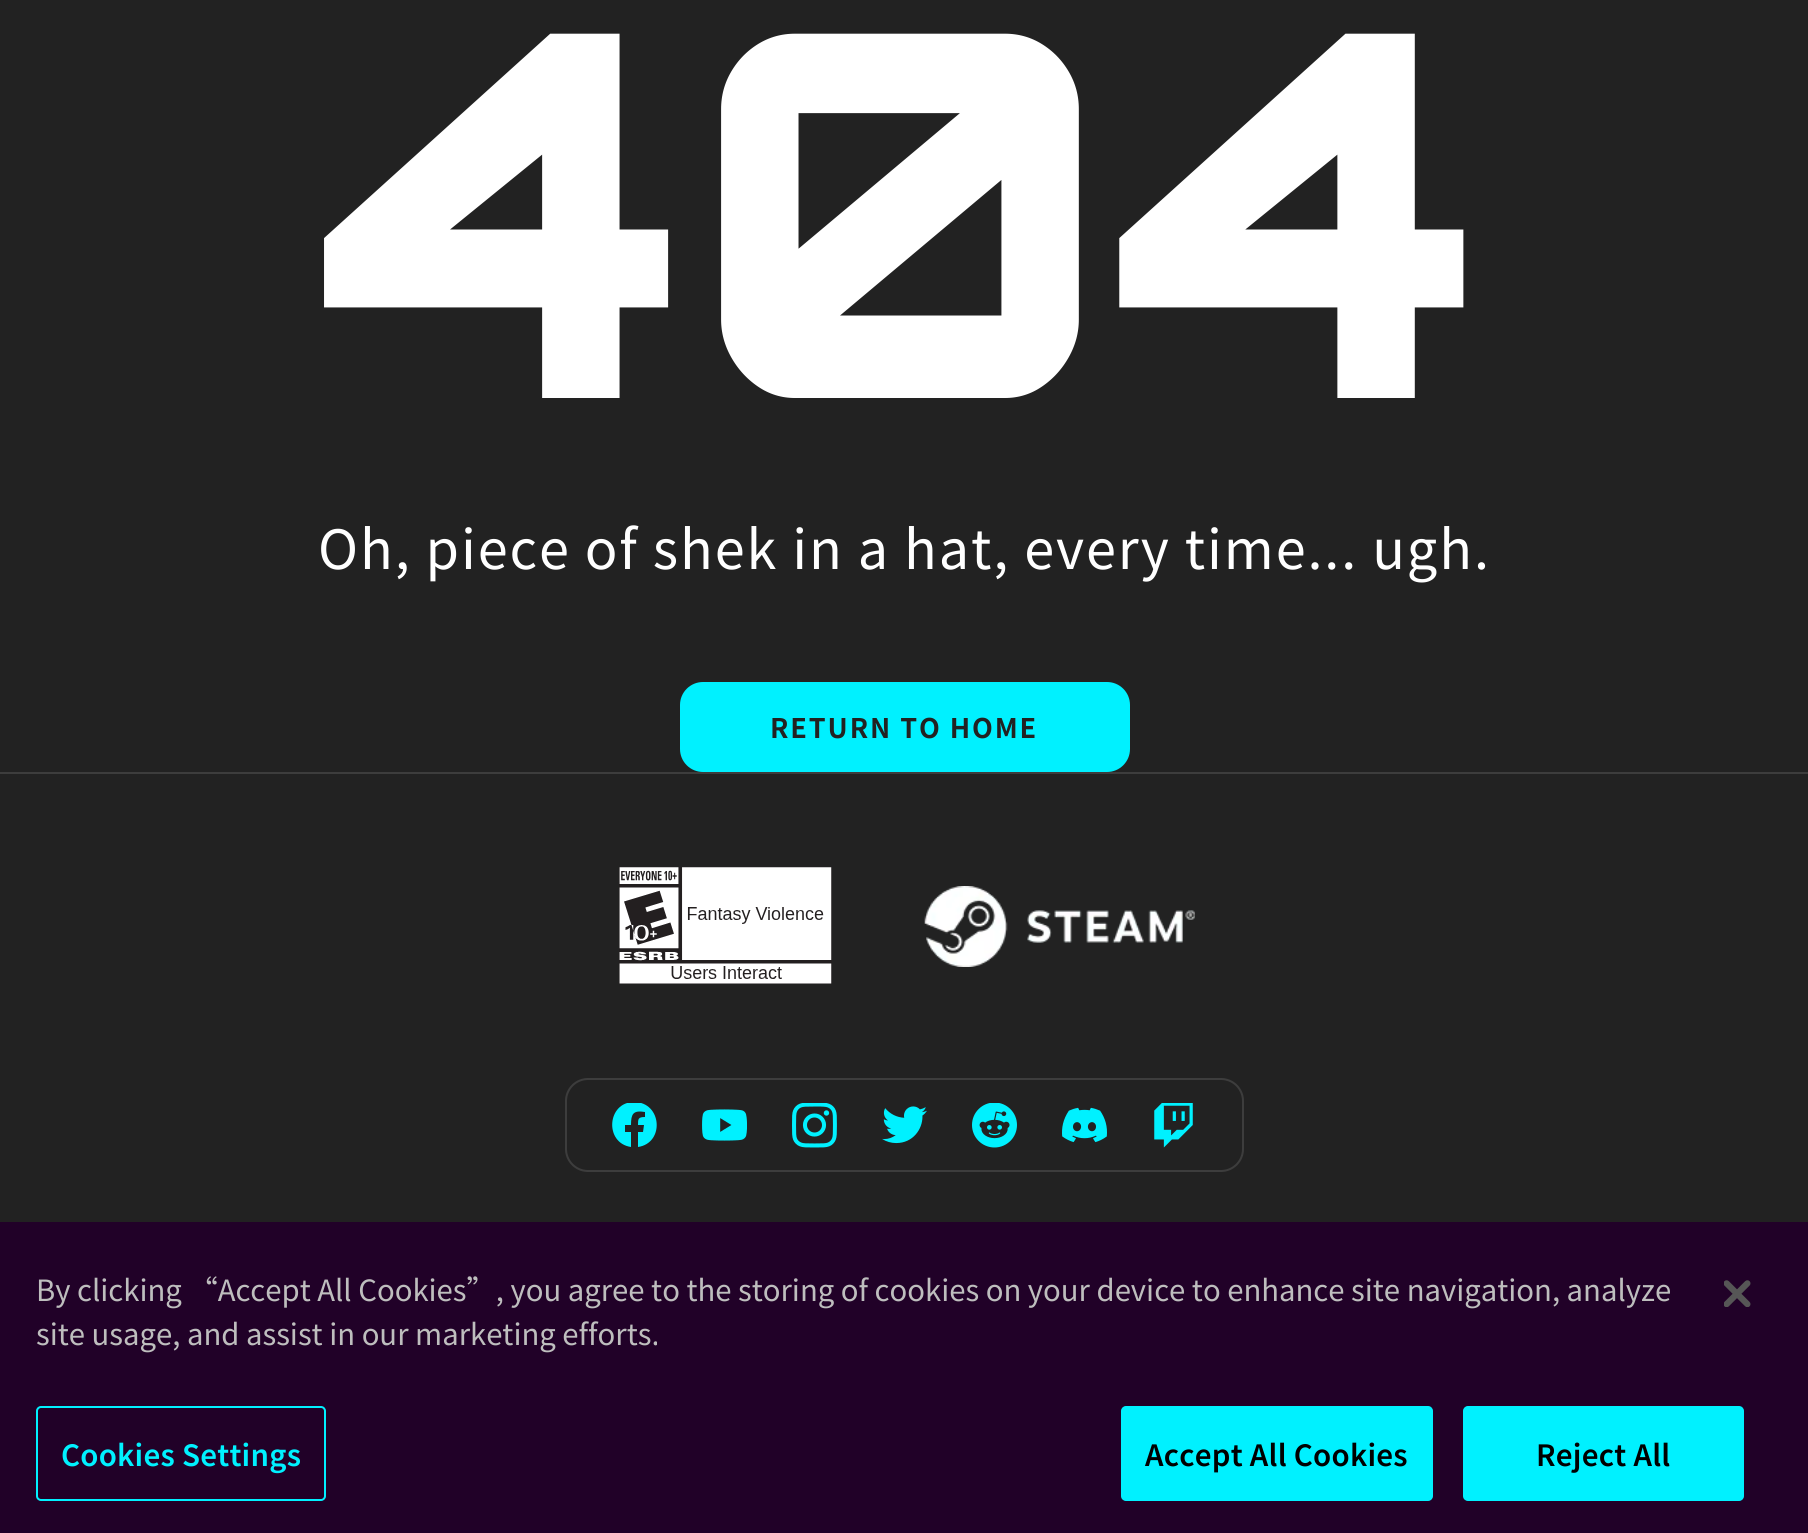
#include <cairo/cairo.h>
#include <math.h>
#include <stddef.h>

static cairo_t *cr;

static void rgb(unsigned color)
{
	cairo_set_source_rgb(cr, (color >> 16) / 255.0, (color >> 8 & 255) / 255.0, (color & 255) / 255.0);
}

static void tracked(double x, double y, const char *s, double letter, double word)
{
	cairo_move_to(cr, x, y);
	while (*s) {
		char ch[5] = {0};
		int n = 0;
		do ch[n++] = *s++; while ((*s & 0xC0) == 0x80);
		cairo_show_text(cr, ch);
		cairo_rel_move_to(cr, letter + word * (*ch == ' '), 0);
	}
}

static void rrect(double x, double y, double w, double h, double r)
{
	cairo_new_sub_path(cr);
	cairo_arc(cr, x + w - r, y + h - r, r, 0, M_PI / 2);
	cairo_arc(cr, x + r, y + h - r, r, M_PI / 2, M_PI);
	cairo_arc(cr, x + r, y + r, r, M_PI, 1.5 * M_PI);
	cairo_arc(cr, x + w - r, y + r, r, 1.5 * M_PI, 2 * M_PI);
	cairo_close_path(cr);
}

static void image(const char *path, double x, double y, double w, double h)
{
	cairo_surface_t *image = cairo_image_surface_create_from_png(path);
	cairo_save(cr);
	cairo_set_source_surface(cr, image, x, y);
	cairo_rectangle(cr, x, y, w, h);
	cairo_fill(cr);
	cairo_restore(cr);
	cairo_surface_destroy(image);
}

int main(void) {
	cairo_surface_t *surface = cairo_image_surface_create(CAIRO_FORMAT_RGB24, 1808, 1533);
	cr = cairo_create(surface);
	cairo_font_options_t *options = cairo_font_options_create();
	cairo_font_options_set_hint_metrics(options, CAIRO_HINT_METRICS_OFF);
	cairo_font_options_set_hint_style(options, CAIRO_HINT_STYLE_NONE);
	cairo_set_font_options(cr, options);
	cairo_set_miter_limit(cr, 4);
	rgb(0x222222);
	cairo_paint(cr);
	rgb(0x00f1ff);
	rrect(680, 682, 450, 90, 23);
	cairo_fill(cr);
	rgb(0x3d3d3d);
	cairo_rectangle(cr, 0, 772, 1808, 2);
	cairo_fill(cr);
	image("img/1.png", 619, 867, 213, 117);
	image("img/2.png", 924, 886, 271, 81);
	rrect(566, 1079, 677, 92, 22);
	cairo_stroke(cr);
	cairo_save(cr);
	cairo_rectangle(cr, 612, 1103, 45, 45);
	cairo_clip(cr);
	rgb(0x00f1ff);
	cairo_new_path(cr);
	cairo_move_to(cr, 634, 1102);
	cairo_curve_to(cr, 607, 1102, 604, 1143, 631, 1147);
	cairo_line_to(cr, 631, 1132);
	cairo_line_to(cr, 625, 1132);
	cairo_line_to(cr, 625, 1125);
	cairo_line_to(cr, 631, 1125);
	cairo_curve_to(cr, 631, 1114, 633, 1110, 645, 1112);
	cairo_line_to(cr, 645, 1117);
	cairo_curve_to(cr, 638, 1117, 638, 1119, 638, 1125);
	cairo_line_to(cr, 644, 1125);
	cairo_line_to(cr, 643, 1132);
	cairo_line_to(cr, 638, 1132);
	cairo_line_to(cr, 638, 1147);
	cairo_curve_to(cr, 665, 1143, 662, 1102, 634, 1102);
	cairo_close_path(cr);
	cairo_fill(cr);
	cairo_restore(cr);
	image("img/3.png", 702, 1109, 45, 32);
	image("img/4.png", 792, 1103, 45, 45);
	image("img/5.png", 882, 1106, 45, 38);
	image("img/6.png", 972, 1103, 45, 45);
	image("img/7.png", 1062, 1107, 45, 36);
	image("img/8.png", 1154, 1103, 39, 45);
	rgb(0x210128);
	cairo_rectangle(cr, 0, 1222, 1808, 311);
	cairo_fill(cr);
	rrect(37, 1407, 288, 93, 4);
	rgb(0x00f1ff);
	cairo_stroke(cr);
	rrect(1122, 1407, 310, 93, 4);
	cairo_fill_preserve(cr);
	cairo_stroke(cr);
	rrect(1464, 1407, 279, 93, 4);
	cairo_fill_preserve(cr);
	cairo_stroke(cr);
	image("img/9.png", 1724, 1280, 27, 27);
	cairo_select_font_face(cr, "Orbitron Black", CAIRO_FONT_SLANT_NORMAL, CAIRO_FONT_WEIGHT_NORMAL);
	cairo_set_font_size(cr, 506);
	rgb(0xffffff);
	tracked(321, 398, "404", 1.9, 0);
	cairo_select_font_face(cr, "Noto Sans TC", CAIRO_FONT_SLANT_NORMAL, CAIRO_FONT_WEIGHT_NORMAL);
	cairo_set_font_size(cr, 54);
	tracked(318, 569, "Oh, piece of shek in a hat, every time... ugh.", 1.9, 0);
	cairo_select_font_face(cr, "Noto Sans TC", CAIRO_FONT_SLANT_NORMAL, CAIRO_FONT_WEIGHT_BOLD);
	cairo_set_font_size(cr, 27);
	rgb(0x222222);
	tracked(770, 738, "RETURN TO HOME", 1.9, 0);
	cairo_select_font_face(cr, "Noto Sans TC", CAIRO_FONT_SLANT_NORMAL, CAIRO_FONT_WEIGHT_NORMAL);
	cairo_set_font_size(cr, 29.27);
	rgb(0xbebebe);
	cairo_move_to(cr, 36, 1301);
	cairo_show_text(cr, "By clicking “Accept All Cookies”, you agree to the storing of cookies on your device to enhance site navigation, analyze");
	cairo_move_to(cr, 36, 1345);
	cairo_show_text(cr, "site usage, and assist in our marketing efforts.");
	cairo_select_font_face(cr, "Noto Sans TC SemiBold", CAIRO_FONT_SLANT_NORMAL, CAIRO_FONT_WEIGHT_NORMAL);
	rgb(0x00f1ff);
	tracked(61, 1466, "Cookies Settings", 0.25, 0);
	rgb(0x000000);
	tracked(1145, 1466, "Accept All Cookies", 0.25, 0);
	tracked(1536, 1466, "Reject All", 0.25, 0);
	cairo_surface_write_to_png(surface, "page.png");
	cairo_font_options_destroy(options);
	cairo_destroy(cr);
	cairo_surface_destroy(surface);
	return 0;
}
